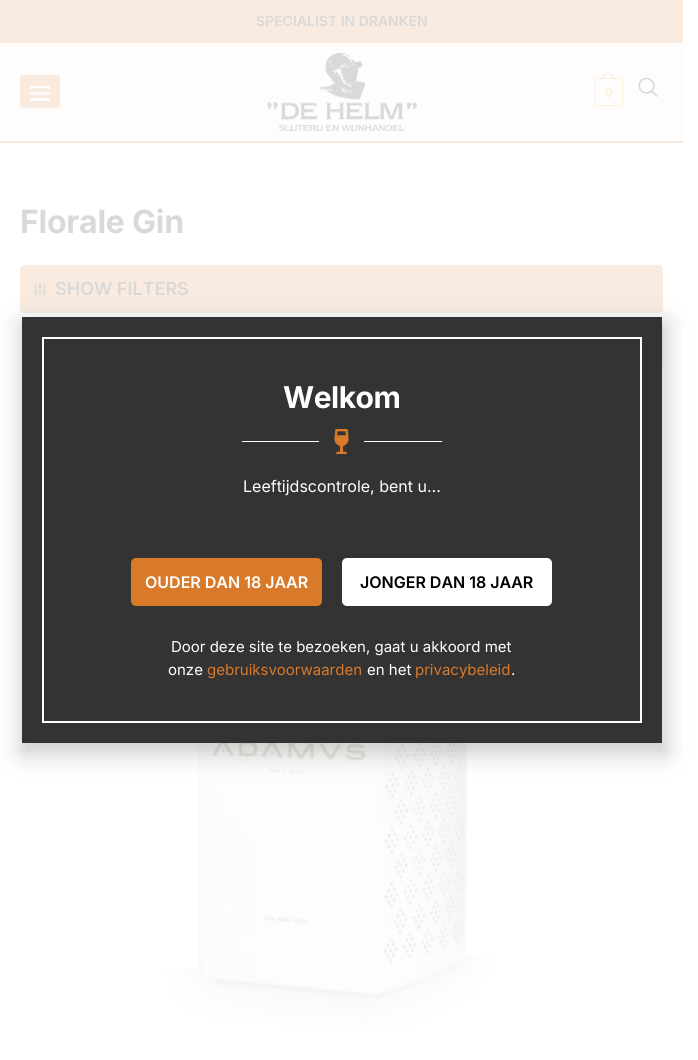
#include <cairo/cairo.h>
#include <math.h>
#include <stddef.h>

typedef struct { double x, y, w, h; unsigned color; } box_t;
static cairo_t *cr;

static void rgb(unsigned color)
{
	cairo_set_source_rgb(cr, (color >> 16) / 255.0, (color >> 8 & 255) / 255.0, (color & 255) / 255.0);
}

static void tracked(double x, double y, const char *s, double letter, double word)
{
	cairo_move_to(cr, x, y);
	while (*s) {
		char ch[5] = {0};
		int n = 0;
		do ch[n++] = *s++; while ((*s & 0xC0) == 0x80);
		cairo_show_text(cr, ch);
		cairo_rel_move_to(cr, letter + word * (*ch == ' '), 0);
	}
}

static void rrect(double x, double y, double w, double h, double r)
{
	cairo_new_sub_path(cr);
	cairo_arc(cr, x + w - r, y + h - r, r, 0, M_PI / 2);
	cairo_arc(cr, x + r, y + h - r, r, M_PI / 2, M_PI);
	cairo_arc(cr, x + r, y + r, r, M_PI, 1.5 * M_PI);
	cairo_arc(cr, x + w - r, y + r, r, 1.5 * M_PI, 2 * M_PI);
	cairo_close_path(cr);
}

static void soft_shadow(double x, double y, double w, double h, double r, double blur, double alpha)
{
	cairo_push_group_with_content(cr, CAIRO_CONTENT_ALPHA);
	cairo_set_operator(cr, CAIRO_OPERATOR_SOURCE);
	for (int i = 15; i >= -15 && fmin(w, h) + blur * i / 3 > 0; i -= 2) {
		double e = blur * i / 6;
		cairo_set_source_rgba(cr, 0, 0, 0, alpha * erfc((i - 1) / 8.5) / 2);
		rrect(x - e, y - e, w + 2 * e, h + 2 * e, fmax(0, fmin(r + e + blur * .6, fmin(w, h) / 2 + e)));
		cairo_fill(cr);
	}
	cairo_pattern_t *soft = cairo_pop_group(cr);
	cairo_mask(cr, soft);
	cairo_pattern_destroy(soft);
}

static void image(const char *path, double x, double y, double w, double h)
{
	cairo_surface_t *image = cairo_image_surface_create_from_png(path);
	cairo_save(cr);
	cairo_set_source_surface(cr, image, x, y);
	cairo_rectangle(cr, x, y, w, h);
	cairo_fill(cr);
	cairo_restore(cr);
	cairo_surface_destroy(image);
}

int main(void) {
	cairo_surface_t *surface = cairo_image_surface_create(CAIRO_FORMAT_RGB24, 698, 1060);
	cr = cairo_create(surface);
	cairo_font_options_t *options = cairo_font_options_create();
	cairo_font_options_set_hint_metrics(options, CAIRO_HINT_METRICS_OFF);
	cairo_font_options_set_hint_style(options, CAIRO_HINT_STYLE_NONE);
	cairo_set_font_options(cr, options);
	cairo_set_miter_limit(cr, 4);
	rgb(0xffffff);
	cairo_paint(cr);
	{
		static const box_t items[] = {
			{0, 0, 683, 43, 0xf9ebdf},
			{0, 141, 683, 2, 0xf9ebdf},
			{0, 43, 683, 98, 0xfefdfc},
		};
		for (size_t i = 0; i < sizeof items / sizeof *items; i++) {
			rgb(items[i].color);
			cairo_rectangle(cr, items[i].x, items[i].y, items[i].w, items[i].h);
			cairo_fill(cr);
		}
	}
	rgb(0xf9ebdf);
	rrect(20, 75, 40, 33, 2.5);
	cairo_fill(cr);
	image("img/1.png", 30, 86, 20, 15);
	image("img/2.png", 267, 53, 150, 78);
	cairo_new_path(cr);
	cairo_move_to(cr, 595.5, 78.5);
	cairo_line_to(cr, 622.5, 78.5);
	cairo_line_to(cr, 622.5, 103);
	cairo_curve_to(cr, 622.5, 104.5, 621.5, 105.5, 620, 105.5);
	cairo_line_to(cr, 598, 105.5);
	cairo_curve_to(cr, 596.5, 105.5, 595.5, 104.5, 595.5, 103);
	cairo_close_path(cr);
	rgb(0xfaf0dc);
	cairo_set_line_width(cr, 1);
	cairo_stroke(cr);
	cairo_set_fill_rule(cr, CAIRO_FILL_RULE_EVEN_ODD);
	cairo_new_path(cr);
	cairo_move_to(cr, 608, 72);
	cairo_curve_to(cr, 611.5, 72, 613, 75, 613, 78);
	cairo_line_to(cr, 603, 78);
	cairo_curve_to(cr, 603, 75, 604.5, 72, 608, 72);
	cairo_close_path(cr);
	cairo_move_to(cr, 608, 73);
	cairo_curve_to(cr, 611, 73, 612, 75.5, 612, 78);
	cairo_line_to(cr, 604, 78);
	cairo_curve_to(cr, 604, 75.5, 605, 73, 608, 73);
	cairo_close_path(cr);
	cairo_fill(cr);
	image("img/3.png", 638, 77, 20, 20);
	rgb(0xf9ebdf);
	rrect(20, 265, 643, 48, 5);
	cairo_fill(cr);
	image("img/4.png", 33, 282, 14, 14);
	cairo_rectangle(cr, 292.5, 328.5, 370, 39);
	rgb(0xf6f6f6);
	cairo_stroke(cr);
	image("img/5.png", 163, 743, 333, 287);
	rgb(0x000000);
	soft_shadow(21, 322, 646, 432, 0, 11.5, 0.2);
	rgb(0xffffff);
	cairo_rectangle(cr, 683, 327, 3, 422);
	cairo_fill(cr);
	rgb(0x333333);
	cairo_rectangle(cr, 22, 317, 640, 426);
	cairo_fill(cr);
	cairo_rectangle(cr, 43, 338, 598, 384);
	rgb(0xffffff);
	cairo_set_line_width(cr, 2);
	cairo_stroke(cr);
	cairo_rectangle(cr, 242, 441, 77, 1);
	cairo_fill(cr);
	image("img/6.png", 334, 429, 15, 25);
	cairo_rectangle(cr, 364, 441, 78, 1);
	cairo_fill(cr);
	rgb(0xd97a2b);
	rrect(131, 558, 191, 48, 5);
	cairo_fill(cr);
	rgb(0xffffff);
	rrect(342, 558, 210, 48, 5);
	cairo_fill(cr);
	cairo_select_font_face(cr, "Inter SemiBold", CAIRO_FONT_SLANT_NORMAL, CAIRO_FONT_WEIGHT_NORMAL);
	cairo_set_font_size(cr, 14);
	rgb(0xd9d9d9);
	cairo_move_to(cr, 256, 26);
	cairo_show_text(cr, "SPECIALIST IN DRANKEN");
	cairo_set_font_size(cr, 12);
	rgb(0xfaf0dc);
	tracked(605, 97, "0", -1, 0);
	cairo_select_font_face(cr, "Inter", CAIRO_FONT_SLANT_NORMAL, CAIRO_FONT_WEIGHT_BOLD);
	cairo_set_font_size(cr, 32);
	rgb(0xd9d9d9);
	tracked(20, 233, "Florale Gin", -0.25, 0);
	cairo_select_font_face(cr, "Inter SemiBold", CAIRO_FONT_SLANT_NORMAL, CAIRO_FONT_WEIGHT_NORMAL);
	cairo_set_font_size(cr, 18);
	cairo_move_to(cr, 55, 295);
	cairo_show_text(cr, "SHOW FILTERS");
	cairo_select_font_face(cr, "Inter", CAIRO_FONT_SLANT_NORMAL, CAIRO_FONT_WEIGHT_BOLD);
	cairo_set_font_size(cr, 30);
	rgb(0xffffff);
	tracked(283, 408, "Welkom", -0.5, 0);
	cairo_select_font_face(cr, "Inter", CAIRO_FONT_SLANT_NORMAL, CAIRO_FONT_WEIGHT_NORMAL);
	cairo_set_font_size(cr, 16);
	cairo_move_to(cr, 243, 492);
	cairo_show_text(cr, "Leeftijdscontrole, bent u…");
	cairo_select_font_face(cr, "Inter SemiBold", CAIRO_FONT_SLANT_NORMAL, CAIRO_FONT_WEIGHT_NORMAL);
	cairo_move_to(cr, 145, 588);
	cairo_show_text(cr, "OUDER DAN 18 JAAR");
	rgb(0x000000);
	cairo_move_to(cr, 360, 588);
	cairo_show_text(cr, "JONGER DAN 18 JAAR");
	cairo_select_font_face(cr, "Inter", CAIRO_FONT_SLANT_NORMAL, CAIRO_FONT_WEIGHT_NORMAL);
	cairo_set_font_size(cr, 15);
	rgb(0xffffff);
	cairo_move_to(cr, 171, 652);
	cairo_show_text(cr, "Door deze site te bezoeken, gaat u akkoord met");
	cairo_move_to(cr, 168, 675);
	cairo_show_text(cr, "onze");
	rgb(0xd97a2b);
	cairo_move_to(cr, 207, 675);
	cairo_show_text(cr, "gebruiksvoorwaarden");
	rgb(0xffffff);
	cairo_move_to(cr, 367, 675);
	cairo_show_text(cr, "en het");
	rgb(0xd97a2b);
	cairo_move_to(cr, 415, 675);
	cairo_show_text(cr, "privacybeleid");
	rgb(0xffffff);
	cairo_move_to(cr, 511, 675);
	cairo_show_text(cr, ".");
	cairo_surface_write_to_png(surface, "page.png");
	cairo_font_options_destroy(options);
	cairo_destroy(cr);
	cairo_surface_destroy(surface);
	return 0;
}
